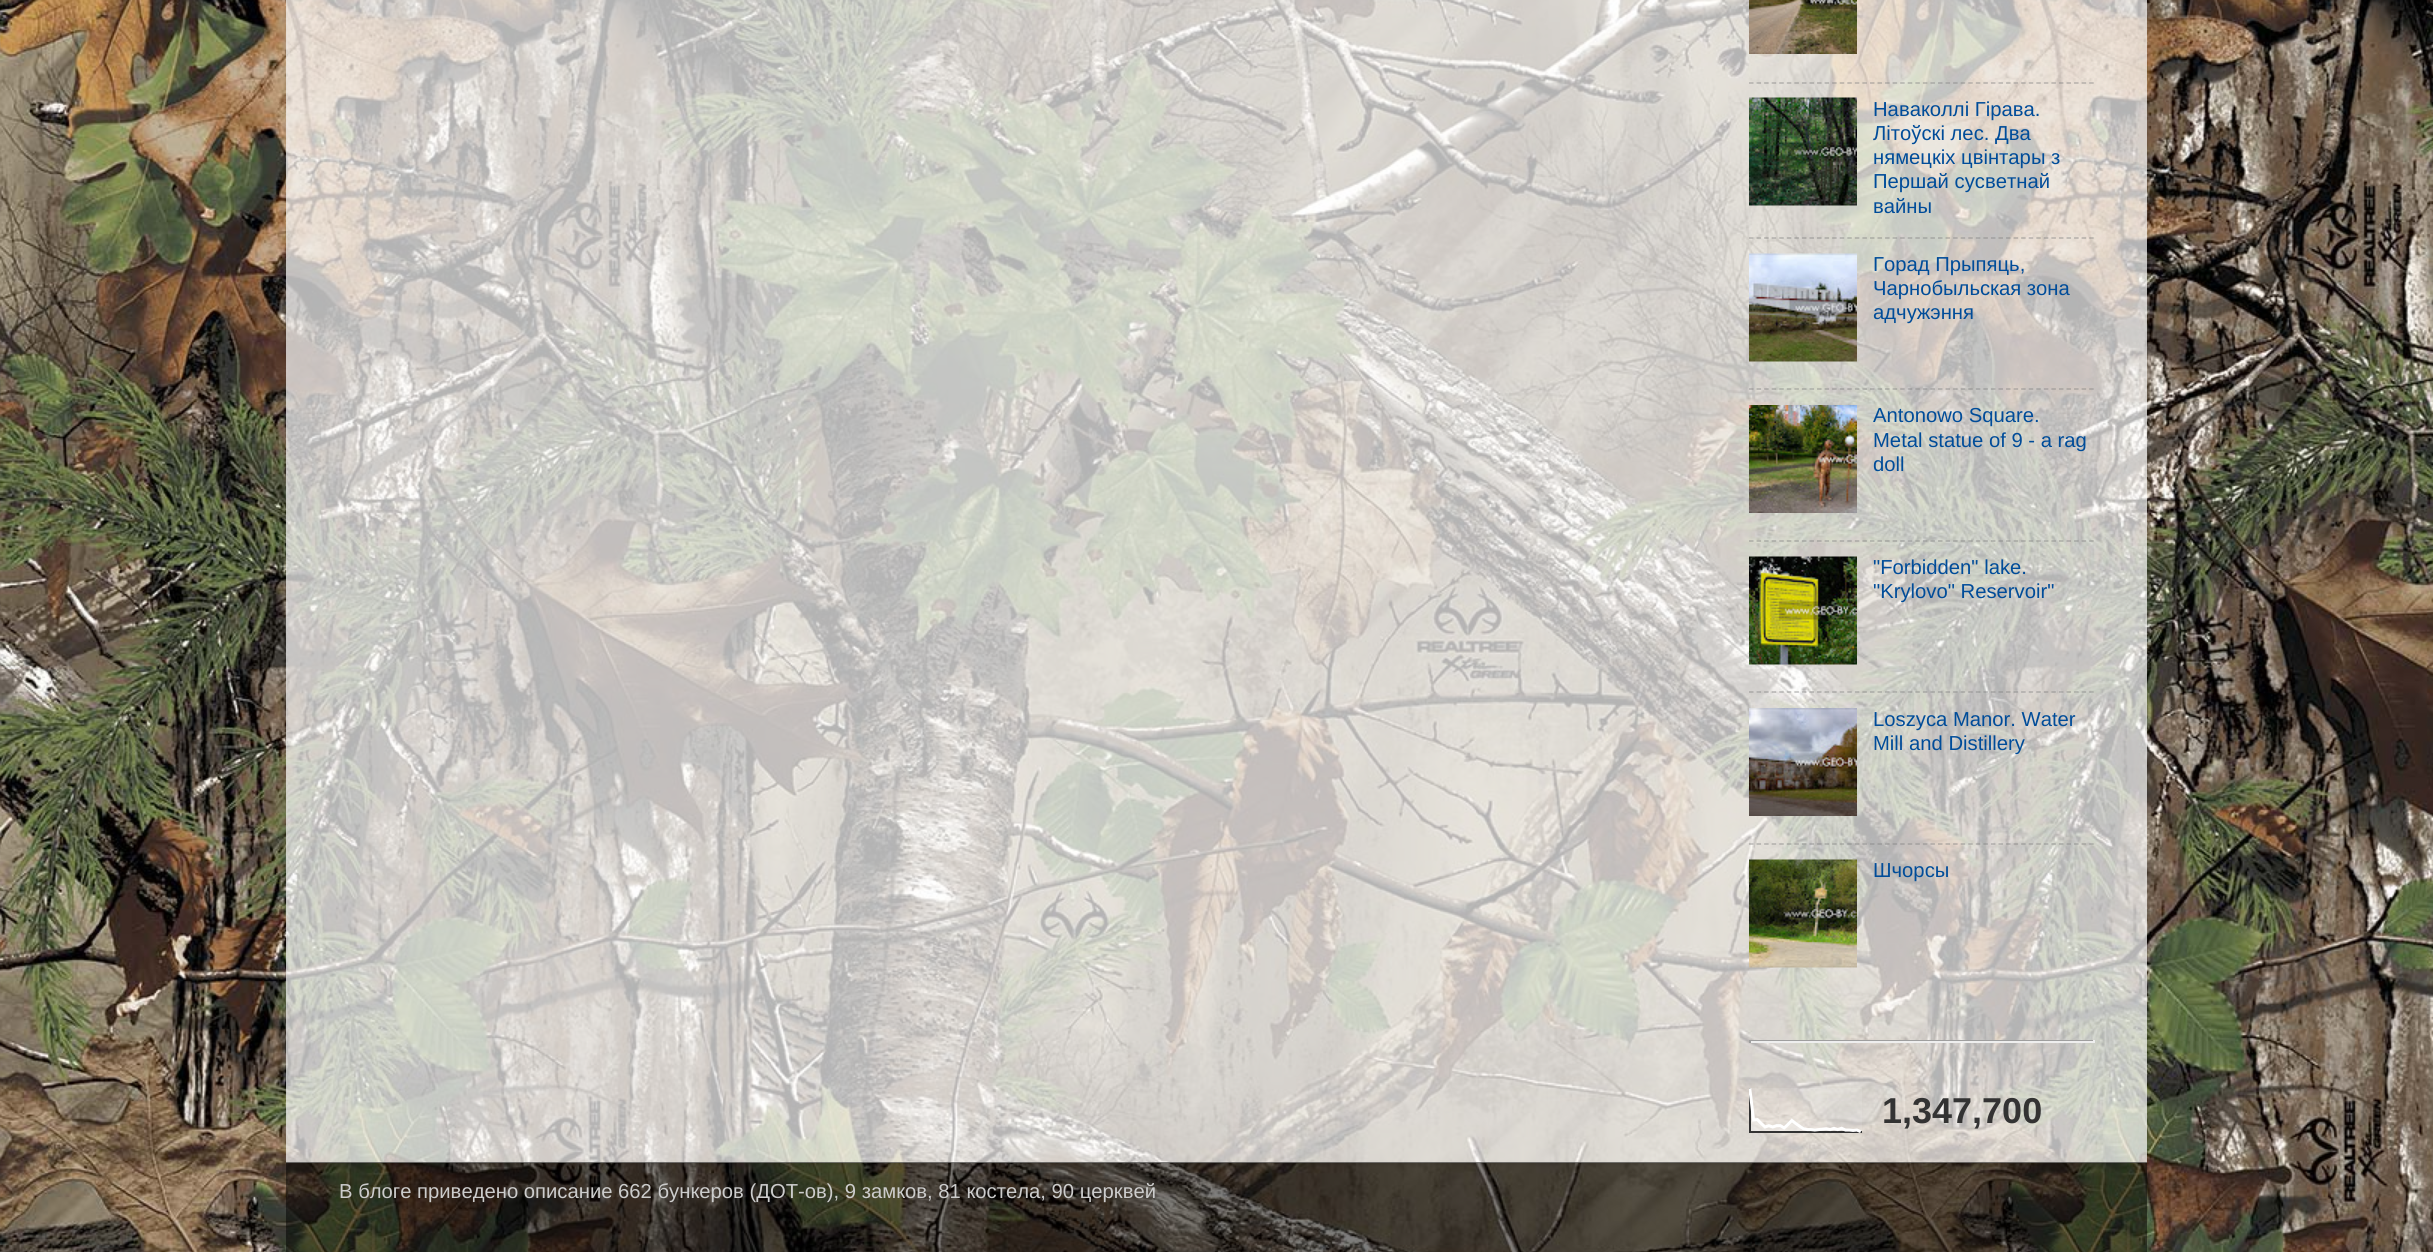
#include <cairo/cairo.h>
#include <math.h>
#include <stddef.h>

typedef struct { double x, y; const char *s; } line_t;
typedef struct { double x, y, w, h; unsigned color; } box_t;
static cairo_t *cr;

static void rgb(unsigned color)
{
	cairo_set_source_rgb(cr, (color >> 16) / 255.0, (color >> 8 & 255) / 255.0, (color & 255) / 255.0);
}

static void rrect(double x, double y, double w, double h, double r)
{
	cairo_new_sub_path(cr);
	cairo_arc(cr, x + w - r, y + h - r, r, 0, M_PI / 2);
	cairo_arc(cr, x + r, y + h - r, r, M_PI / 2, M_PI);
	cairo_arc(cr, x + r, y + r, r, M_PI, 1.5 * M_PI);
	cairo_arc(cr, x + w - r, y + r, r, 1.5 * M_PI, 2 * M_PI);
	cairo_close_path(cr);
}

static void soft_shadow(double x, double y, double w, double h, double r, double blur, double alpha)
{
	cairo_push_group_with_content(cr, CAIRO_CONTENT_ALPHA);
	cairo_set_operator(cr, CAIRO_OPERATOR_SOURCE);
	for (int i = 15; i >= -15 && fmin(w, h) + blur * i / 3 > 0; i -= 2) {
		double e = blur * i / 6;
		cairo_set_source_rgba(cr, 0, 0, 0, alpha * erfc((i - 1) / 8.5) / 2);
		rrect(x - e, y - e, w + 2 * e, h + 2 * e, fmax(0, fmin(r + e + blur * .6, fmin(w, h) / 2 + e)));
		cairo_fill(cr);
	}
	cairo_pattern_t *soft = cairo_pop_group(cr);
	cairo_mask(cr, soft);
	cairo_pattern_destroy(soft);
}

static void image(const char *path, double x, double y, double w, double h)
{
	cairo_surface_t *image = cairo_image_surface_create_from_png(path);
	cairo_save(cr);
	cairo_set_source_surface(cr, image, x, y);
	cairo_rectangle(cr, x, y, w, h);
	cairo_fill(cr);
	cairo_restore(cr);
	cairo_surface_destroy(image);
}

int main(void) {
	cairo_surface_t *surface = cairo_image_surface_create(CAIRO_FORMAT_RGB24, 2433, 1252);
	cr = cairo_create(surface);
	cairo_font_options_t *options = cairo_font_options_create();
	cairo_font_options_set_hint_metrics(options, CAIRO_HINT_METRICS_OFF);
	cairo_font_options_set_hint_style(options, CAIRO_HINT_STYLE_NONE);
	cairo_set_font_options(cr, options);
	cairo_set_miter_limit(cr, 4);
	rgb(0xffffff);
	cairo_paint(cr);
	image("img/1.png", 0, 0, 2433, 1252);
	cairo_save(cr);
	cairo_set_fill_rule(cr, CAIRO_FILL_RULE_EVEN_ODD);
	cairo_new_path(cr);
	cairo_move_to(cr, 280, 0);
	cairo_line_to(cr, 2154, 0);
	cairo_line_to(cr, 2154, 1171);
	cairo_line_to(cr, 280, 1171);
	cairo_close_path(cr);
	cairo_move_to(cr, 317, -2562);
	cairo_line_to(cr, 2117, -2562);
	cairo_curve_to(cr, 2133.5, -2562, 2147, -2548.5, 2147, -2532);
	cairo_line_to(cr, 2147, 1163);
	cairo_line_to(cr, 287, 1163);
	cairo_line_to(cr, 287, -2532);
	cairo_curve_to(cr, 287, -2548.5, 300.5, -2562, 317, -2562);
	cairo_close_path(cr);
	cairo_clip(cr);
	rgb(0x000000);
	soft_shadow(287, -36, 1860, 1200, 30, 2, 0.15);
	cairo_restore(cr);
	cairo_set_source_rgba(cr, 1, 1, 1, 0.7);
	cairo_rectangle(cr, 286, 0, 1861, 1163);
	cairo_fill(cr);
	image("img/2.png", 1749, 0, 108, 54);
	cairo_new_path(cr);
	cairo_move_to(cr, 1749, 83);
	cairo_line_to(cr, 2094, 83);
	cairo_set_source_rgba(cr, 0.502, 0.502, 0.502, 0.5);
	cairo_set_line_width(cr, 1.5);
	cairo_set_dash(cr, (double[]){4.5, 3.06}, 2, 0);
	cairo_stroke(cr);
	image("img/3.png", 1749, 97, 108, 109);
	cairo_new_path(cr);
	cairo_move_to(cr, 1749, 238);
	cairo_line_to(cr, 2094, 238);
	cairo_stroke(cr);
	image("img/4.png", 1749, 253, 108, 109);
	cairo_new_path(cr);
	cairo_move_to(cr, 1749, 389);
	cairo_line_to(cr, 2094, 389);
	cairo_stroke(cr);
	image("img/5.png", 1749, 405, 108, 108);
	cairo_new_path(cr);
	cairo_move_to(cr, 1749, 541);
	cairo_line_to(cr, 2094, 541);
	cairo_stroke(cr);
	image("img/6.png", 1749, 556, 108, 109);
	cairo_new_path(cr);
	cairo_move_to(cr, 1749, 692);
	cairo_line_to(cr, 2094, 692);
	cairo_stroke(cr);
	image("img/7.png", 1749, 708, 108, 108);
	cairo_new_path(cr);
	cairo_move_to(cr, 1749, 844);
	cairo_line_to(cr, 2094, 844);
	cairo_stroke(cr);
	image("img/8.png", 1749, 859, 108, 109);
	{
		static const box_t items[] = {
			{1749, 1040, 345, 1, 0x9f9f9f},
			{2093, 1040, 2, 3, 0xeeeeee},
			{1749, 1041, 345, 2, 0xeeeeee},
			{1749, 1040, 2, 3, 0x9f9f9f},
		};
		for (size_t i = 0; i < sizeof items / sizeof *items; i++) {
			rgb(items[i].color);
			cairo_rectangle(cr, items[i].x, items[i].y, items[i].w, items[i].h);
			cairo_fill(cr);
		}
	}
	image("img/9.png", 1749, 1088, 113, 45);
	cairo_set_source_rgba(cr, 0, 0, 0, 0.5);
	cairo_rectangle(cr, 286, 1162, 1861, 90);
	cairo_fill(cr);
	cairo_select_font_face(cr, "Liberation Sans", CAIRO_FONT_SLANT_NORMAL, CAIRO_FONT_WEIGHT_NORMAL);
	cairo_set_font_size(cr, 20.25);
	rgb(0x004c99);
	{
		static const line_t items[] = {
			{1873, 116, "Наваколлі Гiрава."},
			{1873, 140, "Літоўскі лес. Два"},
			{1873, 164, "нямецкіх цвінтары з"},
			{1873, 188, "Першай сусветнай"},
			{1873, 213, "вайны"},
			{1873, 271, "Горад Прыпяць,"},
			{1873, 295, "Чарнобыльская зона"},
			{1873, 319, "адчужэння"},
			{1873, 422, "Antonowo Square."},
			{1873, 447, "Metal statue of 9 - a rag"},
			{1873, 471, "doll"},
			{1873, 574, "\"Forbidden\" lake."},
			{1873, 598, "\"Krylovo\" Reservoir\""},
			{1873, 726, "Loszyca Manor. Water"},
			{1873, 750, "Mill and Distillery"},
			{1873, 877, "Шчорсы"},
		};
		for (size_t i = 0; i < sizeof items / sizeof *items; i++) {
			cairo_move_to(cr, items[i].x, items[i].y);
			cairo_show_text(cr, items[i].s);
		}
	}
	cairo_select_font_face(cr, "Liberation Sans", CAIRO_FONT_SLANT_NORMAL, CAIRO_FONT_WEIGHT_BOLD);
	cairo_set_font_size(cr, 36);
	rgb(0x333333);
	cairo_move_to(cr, 1882, 1123);
	cairo_show_text(cr, "1,347,700");
	cairo_select_font_face(cr, "Liberation Sans", CAIRO_FONT_SLANT_NORMAL, CAIRO_FONT_WEIGHT_NORMAL);
	cairo_set_font_size(cr, 20.25);
	rgb(0xcccccc);
	cairo_move_to(cr, 339, 1198);
	cairo_show_text(cr, "В блоге приведено описание 662 бункеров (ДОТ-ов), 9 замков, 81 костела, 90 церквей");
	cairo_surface_write_to_png(surface, "page.png");
	cairo_font_options_destroy(options);
	cairo_destroy(cr);
	cairo_surface_destroy(surface);
	return 0;
}
